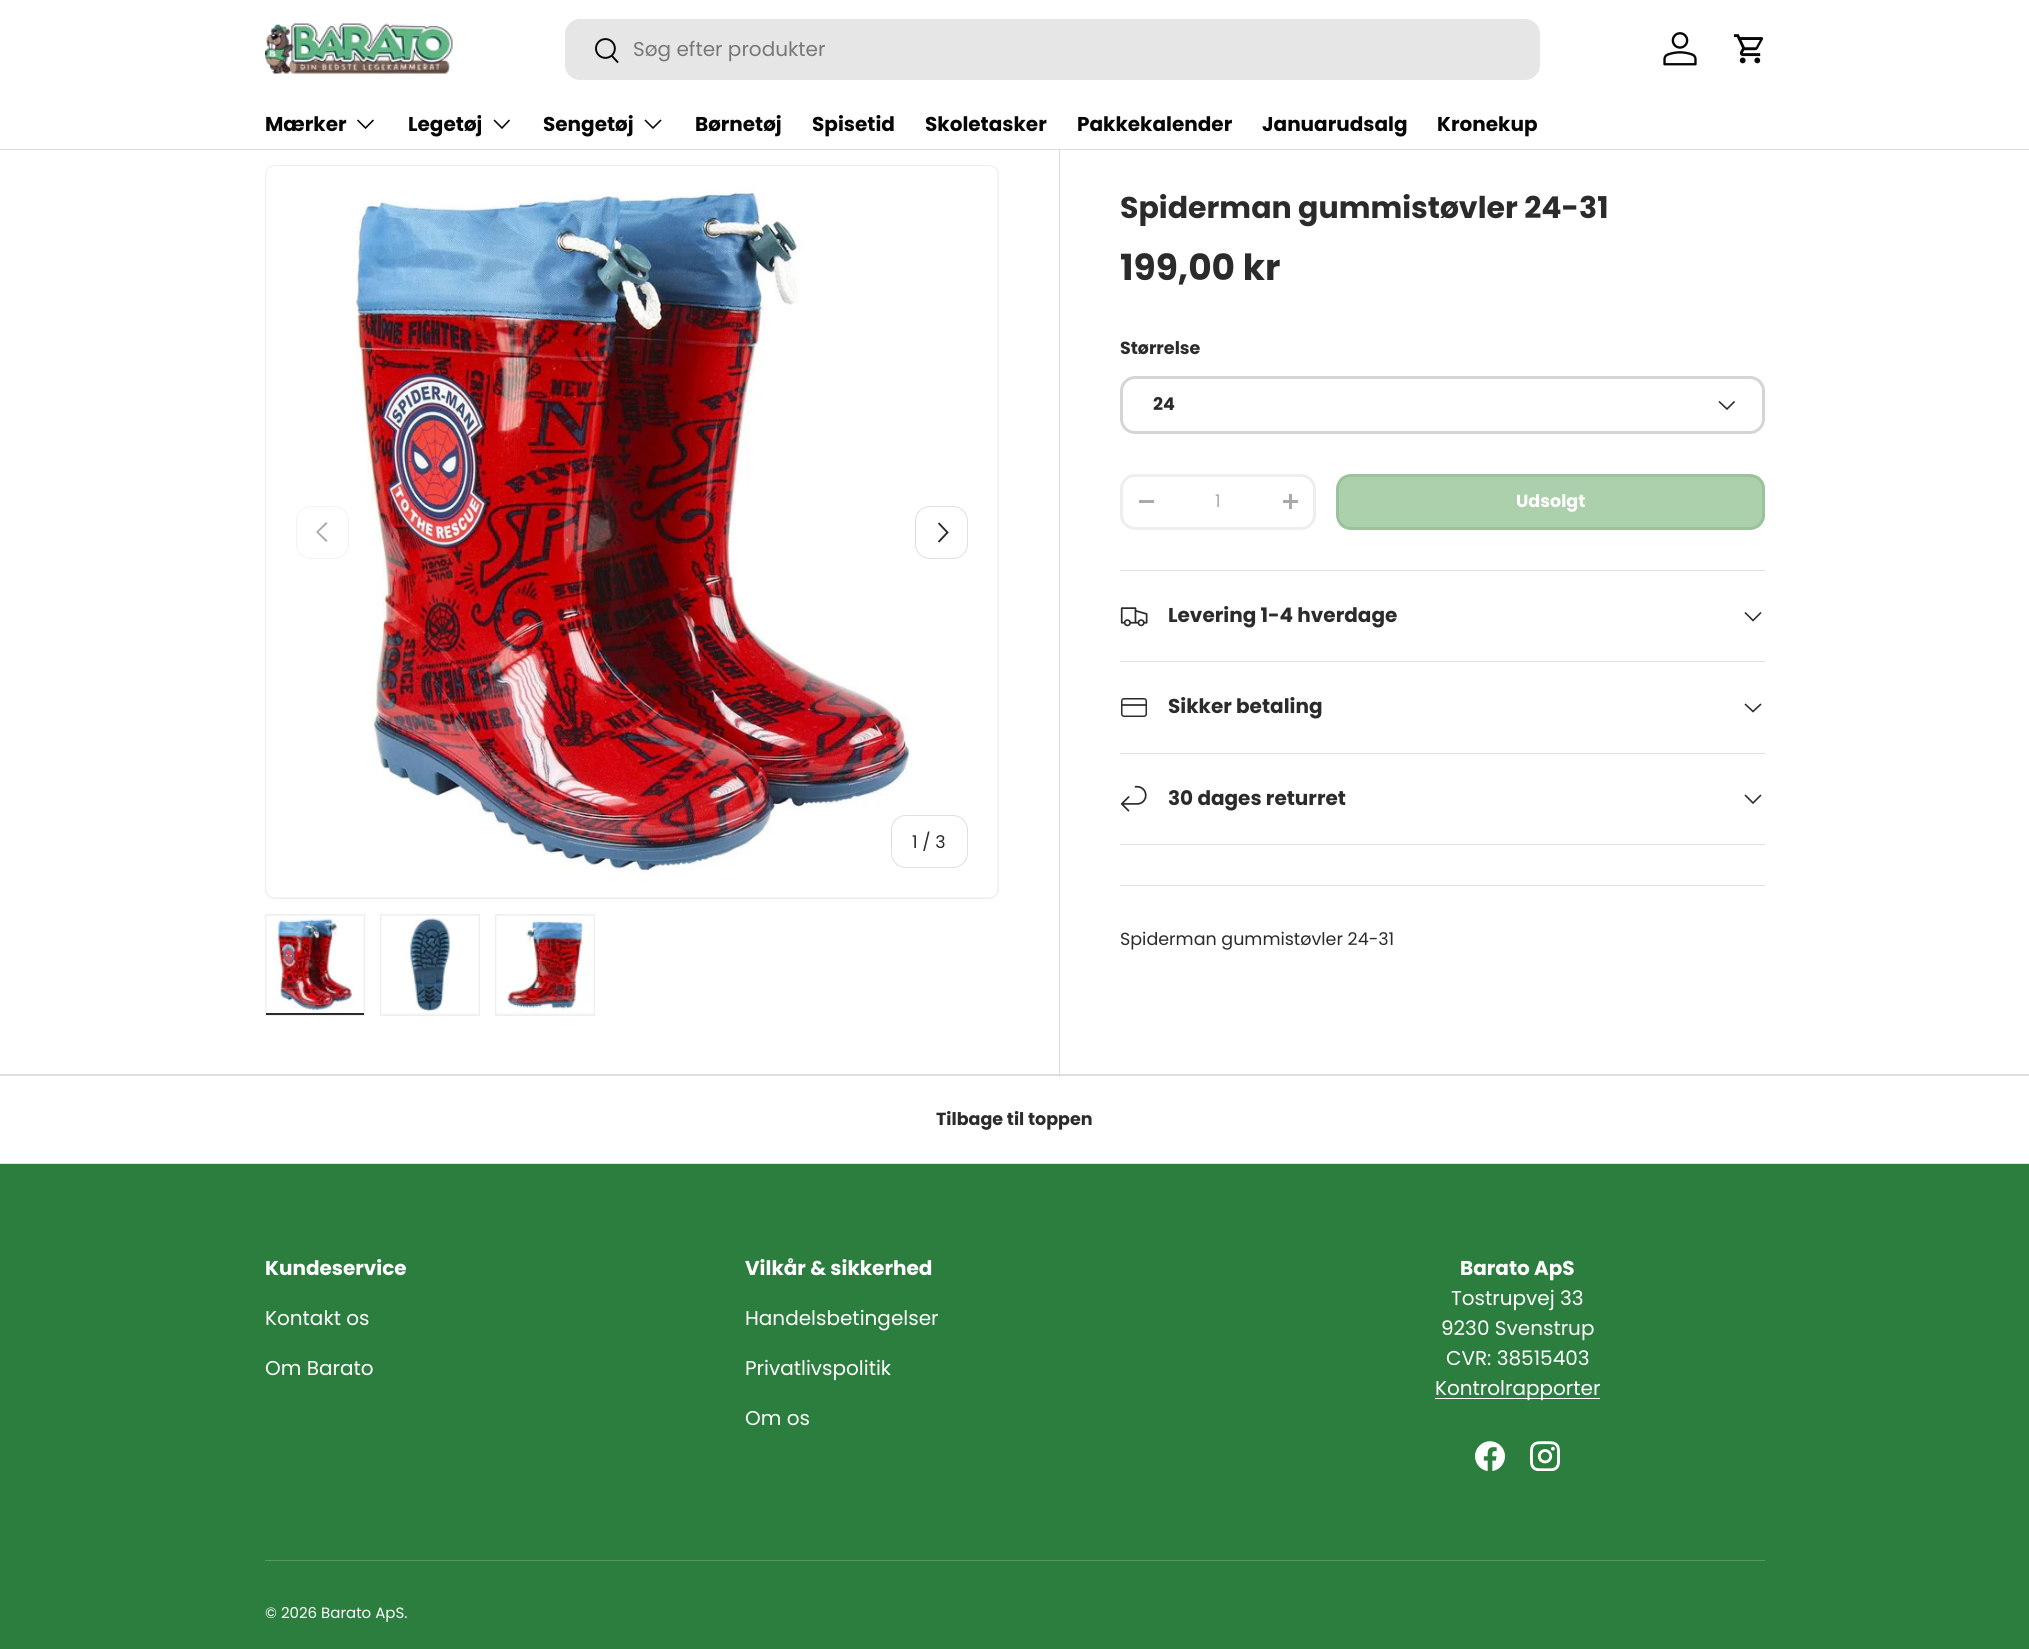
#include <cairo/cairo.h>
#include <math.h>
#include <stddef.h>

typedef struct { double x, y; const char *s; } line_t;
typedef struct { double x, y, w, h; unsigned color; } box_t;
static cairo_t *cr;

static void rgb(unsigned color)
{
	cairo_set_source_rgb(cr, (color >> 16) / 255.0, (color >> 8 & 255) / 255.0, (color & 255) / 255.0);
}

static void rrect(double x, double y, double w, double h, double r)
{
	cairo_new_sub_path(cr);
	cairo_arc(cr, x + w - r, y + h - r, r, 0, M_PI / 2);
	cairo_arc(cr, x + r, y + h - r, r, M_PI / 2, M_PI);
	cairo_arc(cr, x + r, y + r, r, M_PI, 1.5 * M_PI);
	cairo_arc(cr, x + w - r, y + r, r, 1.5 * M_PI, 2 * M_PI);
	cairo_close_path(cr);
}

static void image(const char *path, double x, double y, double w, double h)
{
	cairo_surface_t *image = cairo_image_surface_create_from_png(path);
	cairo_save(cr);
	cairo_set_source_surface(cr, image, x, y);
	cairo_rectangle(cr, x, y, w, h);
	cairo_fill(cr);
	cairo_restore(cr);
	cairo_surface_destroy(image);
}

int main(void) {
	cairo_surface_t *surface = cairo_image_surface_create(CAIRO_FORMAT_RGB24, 2029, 1649);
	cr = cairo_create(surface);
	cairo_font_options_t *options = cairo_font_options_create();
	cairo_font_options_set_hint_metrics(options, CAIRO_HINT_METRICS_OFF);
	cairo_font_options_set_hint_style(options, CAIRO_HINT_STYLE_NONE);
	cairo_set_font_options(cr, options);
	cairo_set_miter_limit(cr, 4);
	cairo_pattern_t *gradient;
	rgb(0xffffff);
	cairo_paint(cr);
	rgb(0xdfdfdf);
	cairo_rectangle(cr, 0, 1074, 2029, 2);
	cairo_fill(cr);
	rgb(0xdadada);
	cairo_rectangle(cr, 0, 149, 2029, 1);
	cairo_fill(cr);
	image("img/1.png", 265, 23, 188, 51);
	rgb(0xe6e6e6);
	rrect(565, 19, 975, 61, 15);
	cairo_fill(cr);
	image("img/2.png", 595, 38, 24, 26);
	image("img/3.png", 1663, 32, 34, 34);
	image("img/4.png", 1733, 34, 31, 30);
	cairo_new_path(cr);
	cairo_move_to(cr, 373.5, 120);
	cairo_line_to(cr, 365.5, 128);
	cairo_line_to(cr, 357.5, 120);
	rgb(0x070707);
	cairo_set_line_width(cr, 1.6);
	cairo_stroke(cr);
	cairo_new_path(cr);
	cairo_move_to(cr, 509.5, 120);
	cairo_line_to(cr, 502, 128);
	cairo_line_to(cr, 494, 120);
	cairo_stroke(cr);
	cairo_new_path(cr);
	cairo_move_to(cr, 661, 120);
	cairo_line_to(cr, 653, 128);
	cairo_line_to(cr, 645, 120);
	cairo_stroke(cr);
	rgb(0xf4f4f4);
	rrect(265.5, 165.5, 733, 733, 9.5);
	cairo_fill_preserve(cr);
	rgb(0xeeeeee);
	cairo_set_line_width(cr, 1);
	cairo_stroke(cr);
	image("img/5.png", 266, 166, 732, 731);
	rrect(296.5, 506.5, 52, 52, 14.5);
	rgb(0xf2f2f2);
	cairo_stroke(cr);
	rgb(0xaaaaaa);
	cairo_new_path(cr);
	cairo_move_to(cr, 316, 532);
	cairo_line_to(cr, 326, 522);
	cairo_line_to(cr, 327.5, 523.5);
	cairo_line_to(cr, 318.5, 532);
	cairo_line_to(cr, 327.5, 540.5);
	cairo_line_to(cr, 326, 542);
	cairo_close_path(cr);
	cairo_fill(cr);
	rrect(915.5, 506.5, 52, 52, 14.5);
	rgb(0xdfdfdf);
	cairo_stroke(cr);
	cairo_new_path(cr);
	cairo_move_to(cr, 938.5, 523);
	cairo_line_to(cr, 947.5, 532.5);
	cairo_line_to(cr, 938.5, 542);
	rgb(0x2a2b2a);
	cairo_set_line_width(cr, 1.9);
	cairo_stroke(cr);
	rrect(891.5, 815.5, 76, 52, 14.5);
	rgb(0xdfdfdf);
	cairo_set_line_width(cr, 1);
	cairo_stroke(cr);
	rgb(0xf4f4f4);
	cairo_rectangle(cr, 266, 915, 98, 98);
	cairo_fill(cr);
	cairo_rectangle(cr, 265.5, 914.5, 99, 101);
	rgb(0xeeeeee);
	cairo_stroke(cr);
	image("img/6.png", 266, 916, 98, 97);
	rgb(0x2a2b2a);
	cairo_rectangle(cr, 266, 1013, 98, 2);
	cairo_fill(cr);
	rgb(0xf4f4f4);
	cairo_rectangle(cr, 380.5, 914.5, 99, 101);
	cairo_fill_preserve(cr);
	rgb(0xeeeeee);
	cairo_stroke(cr);
	image("img/7.png", 381, 916, 98, 98);
	rgb(0xf4f4f4);
	cairo_rectangle(cr, 495.5, 914.5, 99, 101);
	cairo_fill_preserve(cr);
	rgb(0xeeeeee);
	cairo_stroke(cr);
	image("img/8.png", 496, 916, 98, 98);
	rgb(0xdfdfdf);
	cairo_rectangle(cr, 1059, 150, 1, 926);
	cairo_fill(cr);
	rgb(0xc4c4c4);
	cairo_rectangle(cr, 1059, 1075, 1, 1);
	cairo_fill(cr);
	rrect(1121.5, 377.5, 642, 55, 13.5);
	rgb(0xd4d5d4);
	cairo_set_line_width(cr, 3);
	cairo_stroke(cr);
	cairo_new_path(cr);
	cairo_move_to(cr, 1734.5, 401.5);
	cairo_line_to(cr, 1727, 409);
	cairo_line_to(cr, 1719, 401.5);
	rgb(0x2a2b2a);
	cairo_set_line_width(cr, 1.6);
	cairo_stroke(cr);
	rrect(1121.5, 475.5, 193, 53, 13.5);
	rgb(0xeeeeee);
	cairo_set_line_width(cr, 3);
	cairo_stroke(cr);
	{
		static const box_t items[] = {
			{1139, 500, 15, 3, 0xaaaaaa},
			{1283, 500, 15, 3, 0xaaaaaa},
			{1289, 494, 3, 15, 0xaaaaaa},
		};
		for (size_t i = 0; i < sizeof items / sizeof *items; i++) {
			rgb(items[i].color);
			cairo_rectangle(cr, items[i].x, items[i].y, items[i].w, items[i].h);
			cairo_fill(cr);
		}
	}
	cairo_save(cr);
	rrect(1336, 474, 429, 56, 15);
	cairo_clip(cr);
	gradient = cairo_pattern_create_linear(1370, 351, 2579, 653);
	cairo_pattern_add_color_stop_rgba(gradient, 0.6, 0.675, 0.816, 0.675, 1);
	cairo_pattern_add_color_stop_rgba(gradient, 0.6, 0.608, 0.765, 0.608, 1);
	cairo_pattern_add_color_stop_rgba(gradient, 1, 0.608, 0.765, 0.608, 1);
	cairo_set_source(cr, gradient);
	cairo_pattern_destroy(gradient);
	cairo_rectangle(cr, 1339, 476, 426, 52);
	cairo_fill(cr);
	cairo_restore(cr);
	rrect(1337.5, 475.5, 426, 53, 13.5);
	rgb(0x9bc39b);
	cairo_stroke(cr);
	rgb(0xdfdfdf);
	cairo_rectangle(cr, 1120, 570, 645, 1);
	cairo_fill(cr);
	cairo_rectangle(cr, 1120, 661, 645, 1);
	cairo_fill(cr);
	image("img/9.png", 1120, 607, 28, 20);
	cairo_new_path(cr);
	cairo_move_to(cr, 1761, 612.5);
	cairo_line_to(cr, 1753, 620.5);
	cairo_line_to(cr, 1745, 612.5);
	rgb(0x2a2b2a);
	cairo_set_line_width(cr, 1.6);
	cairo_stroke(cr);
	rgb(0xdfdfdf);
	cairo_rectangle(cr, 1120, 753, 645, 1);
	cairo_fill(cr);
	rrect(1121.75, 698.75, 24.5, 17.5, 2.25);
	rgb(0x2a2b2a);
	cairo_set_line_width(cr, 1.5);
	cairo_stroke(cr);
	cairo_set_source_rgba(cr, 0.165, 0.169, 0.165, 0.85);
	cairo_rectangle(cr, 1122, 704, 24, 2);
	cairo_fill(cr);
	cairo_new_path(cr);
	cairo_move_to(cr, 1761, 704);
	cairo_line_to(cr, 1753, 711.5);
	cairo_line_to(cr, 1745, 704);
	rgb(0x2a2b2a);
	cairo_set_line_width(cr, 1.6);
	cairo_stroke(cr);
	rgb(0xdfdfdf);
	cairo_rectangle(cr, 1120, 844, 645, 1);
	cairo_fill(cr);
	image("img/10.png", 1120, 785, 27, 27);
	cairo_new_path(cr);
	cairo_move_to(cr, 1761, 795);
	cairo_line_to(cr, 1753, 803);
	cairo_line_to(cr, 1745, 795);
	rgb(0x2a2b2a);
	cairo_stroke(cr);
	{
		static const box_t items[] = {
			{1120, 885, 645, 1, 0xdfdfdf},
			{0, 1163, 2029, 1, 0xdfdfdf},
			{0, 1164, 2029, 485, 0x2c7e3f},
			{1435, 1398, 165, 1, 0xffffff},
		};
		for (size_t i = 0; i < sizeof items / sizeof *items; i++) {
			rgb(items[i].color);
			cairo_rectangle(cr, items[i].x, items[i].y, items[i].w, items[i].h);
			cairo_fill(cr);
		}
	}
	image("img/11.png", 1475, 1441, 30, 30);
	image("img/12.png", 1530, 1441, 30, 30);
	rgb(0x569865);
	cairo_rectangle(cr, 265, 1560, 1500, 1);
	cairo_fill(cr);
	cairo_select_font_face(cr, "Poppins", CAIRO_FONT_SLANT_NORMAL, CAIRO_FONT_WEIGHT_NORMAL);
	cairo_set_font_size(cr, 20);
	rgb(0x777777);
	cairo_move_to(cr, 633, 56);
	cairo_show_text(cr, "Søg efter produkter");
	cairo_select_font_face(cr, "Poppins", CAIRO_FONT_SLANT_NORMAL, CAIRO_FONT_WEIGHT_BOLD);
	rgb(0x070707);
	{
		static const line_t items[] = {
			{265, 131, "Mærker"},
			{408, 131, "Legetøj"},
			{543, 131, "Sengetøj"},
			{695, 131, "Børnetøj"},
			{812, 131, "Spisetid"},
			{925, 131, "Skoletasker"},
			{1077, 131, "Pakkekalender"},
			{1262, 131, "Januarudsalg"},
			{1437, 131, "Kronekup"},
		};
		for (size_t i = 0; i < sizeof items / sizeof *items; i++) {
			cairo_move_to(cr, items[i].x, items[i].y);
			cairo_show_text(cr, items[i].s);
		}
	}
	cairo_select_font_face(cr, "Poppins", CAIRO_FONT_SLANT_NORMAL, CAIRO_FONT_WEIGHT_NORMAL);
	cairo_set_font_size(cr, 17.5);
	rgb(0x2a2b2a);
	cairo_move_to(cr, 912, 848);
	cairo_show_text(cr, "1 / 3");
	cairo_select_font_face(cr, "Poppins", CAIRO_FONT_SLANT_NORMAL, CAIRO_FONT_WEIGHT_BOLD);
	cairo_set_font_size(cr, 30);
	cairo_move_to(cr, 1120, 218);
	cairo_show_text(cr, "Spiderman gummistøvler 24-31");
	cairo_set_font_size(cr, 36);
	cairo_move_to(cr, 1120, 280);
	cairo_show_text(cr, "199,00 kr");
	cairo_set_font_size(cr, 17.5);
	cairo_move_to(cr, 1120, 354);
	cairo_show_text(cr, "Størrelse");
	cairo_move_to(cr, 1153, 410);
	cairo_show_text(cr, "24");
	cairo_select_font_face(cr, "Poppins", CAIRO_FONT_SLANT_NORMAL, CAIRO_FONT_WEIGHT_NORMAL);
	rgb(0xaaaaaa);
	cairo_move_to(cr, 1215, 507);
	cairo_show_text(cr, "1");
	cairo_select_font_face(cr, "Poppins", CAIRO_FONT_SLANT_NORMAL, CAIRO_FONT_WEIGHT_BOLD);
	rgb(0xffffff);
	cairo_move_to(cr, 1516, 507);
	cairo_show_text(cr, "Udsolgt");
	cairo_set_font_size(cr, 20);
	rgb(0x2a2b2a);
	{
		static const line_t items[] = {
			{1168, 622, "Levering 1-4 hverdage"},
			{1168, 713, "Sikker betaling"},
			{1168, 805, "30 dages returret"},
		};
		for (size_t i = 0; i < sizeof items / sizeof *items; i++) {
			cairo_move_to(cr, items[i].x, items[i].y);
			cairo_show_text(cr, items[i].s);
		}
	}
	cairo_select_font_face(cr, "Poppins", CAIRO_FONT_SLANT_NORMAL, CAIRO_FONT_WEIGHT_NORMAL);
	cairo_set_font_size(cr, 17.5);
	cairo_move_to(cr, 1120, 945);
	cairo_show_text(cr, "Spiderman gummistøvler 24-31");
	cairo_select_font_face(cr, "Poppins", CAIRO_FONT_SLANT_NORMAL, CAIRO_FONT_WEIGHT_BOLD);
	cairo_move_to(cr, 936, 1125);
	cairo_show_text(cr, "Tilbage til toppen");
	cairo_set_font_size(cr, 20);
	rgb(0xffffff);
	cairo_move_to(cr, 265, 1275);
	cairo_show_text(cr, "Kundeservice");
	cairo_select_font_face(cr, "Poppins", CAIRO_FONT_SLANT_NORMAL, CAIRO_FONT_WEIGHT_NORMAL);
	cairo_move_to(cr, 265, 1325);
	cairo_show_text(cr, "Kontakt os");
	cairo_move_to(cr, 265, 1375);
	cairo_show_text(cr, "Om Barato");
	cairo_select_font_face(cr, "Poppins", CAIRO_FONT_SLANT_NORMAL, CAIRO_FONT_WEIGHT_BOLD);
	cairo_move_to(cr, 745, 1275);
	cairo_show_text(cr, "Vilkår & sikkerhed");
	cairo_select_font_face(cr, "Poppins", CAIRO_FONT_SLANT_NORMAL, CAIRO_FONT_WEIGHT_NORMAL);
	{
		static const line_t items[] = {
			{745, 1325, "Handelsbetingelser"},
			{745, 1375, "Privatlivspolitik"},
			{745, 1425, "Om os"},
		};
		for (size_t i = 0; i < sizeof items / sizeof *items; i++) {
			cairo_move_to(cr, items[i].x, items[i].y);
			cairo_show_text(cr, items[i].s);
		}
	}
	cairo_select_font_face(cr, "Poppins", CAIRO_FONT_SLANT_NORMAL, CAIRO_FONT_WEIGHT_BOLD);
	cairo_move_to(cr, 1460, 1275);
	cairo_show_text(cr, "Barato ApS");
	cairo_select_font_face(cr, "Poppins", CAIRO_FONT_SLANT_NORMAL, CAIRO_FONT_WEIGHT_NORMAL);
	{
		static const line_t items[] = {
			{1451, 1305, "Tostrupvej 33"},
			{1441, 1335, "9230 Svenstrup"},
			{1446, 1365, "CVR: 38515403"},
			{1435, 1395, "Kontrolrapporter"},
		};
		for (size_t i = 0; i < sizeof items / sizeof *items; i++) {
			cairo_move_to(cr, items[i].x, items[i].y);
			cairo_show_text(cr, items[i].s);
		}
	}
	cairo_set_font_size(cr, 15);
	cairo_move_to(cr, 265, 1618);
	cairo_show_text(cr, "© 2026 Barato ApS.");
	cairo_surface_write_to_png(surface, "page.png");
	cairo_font_options_destroy(options);
	cairo_destroy(cr);
	cairo_surface_destroy(surface);
	return 0;
}
